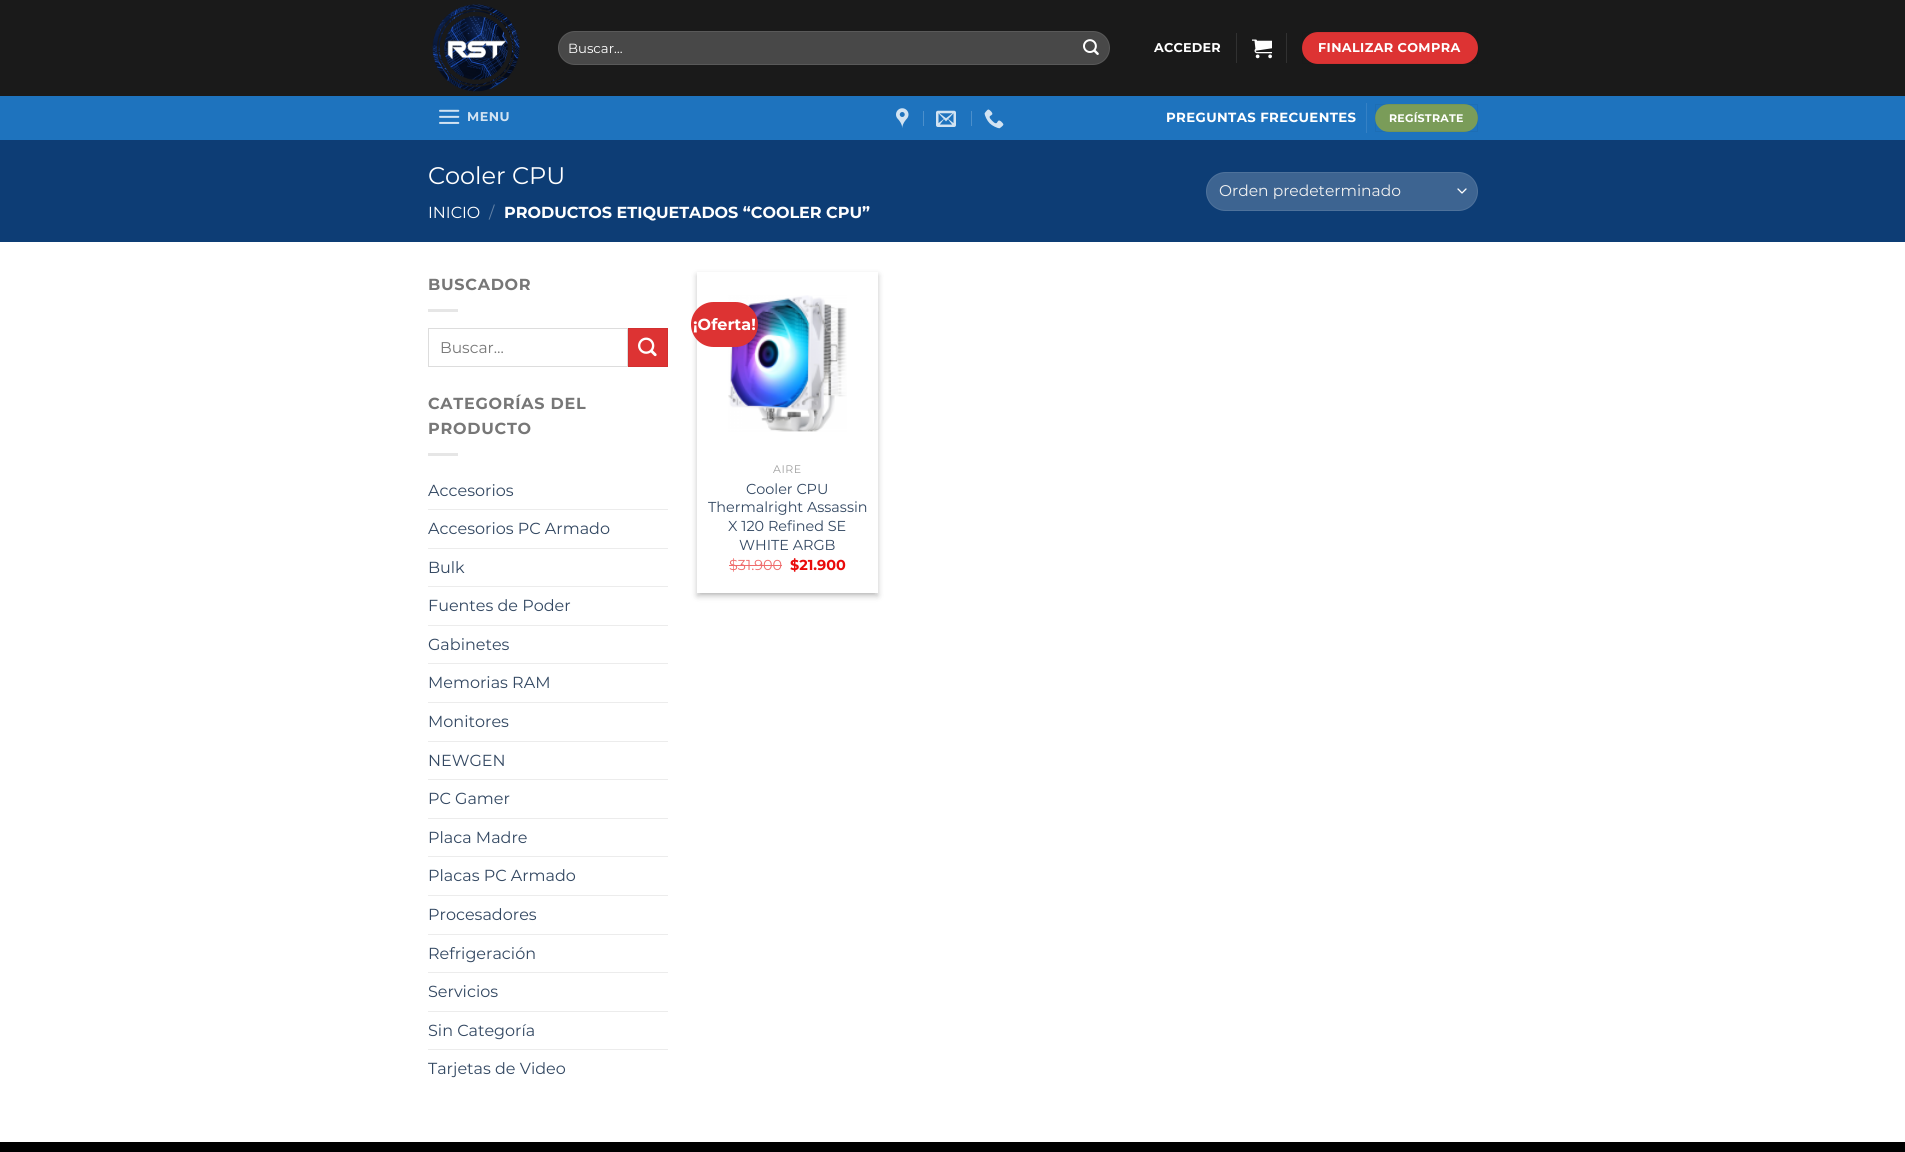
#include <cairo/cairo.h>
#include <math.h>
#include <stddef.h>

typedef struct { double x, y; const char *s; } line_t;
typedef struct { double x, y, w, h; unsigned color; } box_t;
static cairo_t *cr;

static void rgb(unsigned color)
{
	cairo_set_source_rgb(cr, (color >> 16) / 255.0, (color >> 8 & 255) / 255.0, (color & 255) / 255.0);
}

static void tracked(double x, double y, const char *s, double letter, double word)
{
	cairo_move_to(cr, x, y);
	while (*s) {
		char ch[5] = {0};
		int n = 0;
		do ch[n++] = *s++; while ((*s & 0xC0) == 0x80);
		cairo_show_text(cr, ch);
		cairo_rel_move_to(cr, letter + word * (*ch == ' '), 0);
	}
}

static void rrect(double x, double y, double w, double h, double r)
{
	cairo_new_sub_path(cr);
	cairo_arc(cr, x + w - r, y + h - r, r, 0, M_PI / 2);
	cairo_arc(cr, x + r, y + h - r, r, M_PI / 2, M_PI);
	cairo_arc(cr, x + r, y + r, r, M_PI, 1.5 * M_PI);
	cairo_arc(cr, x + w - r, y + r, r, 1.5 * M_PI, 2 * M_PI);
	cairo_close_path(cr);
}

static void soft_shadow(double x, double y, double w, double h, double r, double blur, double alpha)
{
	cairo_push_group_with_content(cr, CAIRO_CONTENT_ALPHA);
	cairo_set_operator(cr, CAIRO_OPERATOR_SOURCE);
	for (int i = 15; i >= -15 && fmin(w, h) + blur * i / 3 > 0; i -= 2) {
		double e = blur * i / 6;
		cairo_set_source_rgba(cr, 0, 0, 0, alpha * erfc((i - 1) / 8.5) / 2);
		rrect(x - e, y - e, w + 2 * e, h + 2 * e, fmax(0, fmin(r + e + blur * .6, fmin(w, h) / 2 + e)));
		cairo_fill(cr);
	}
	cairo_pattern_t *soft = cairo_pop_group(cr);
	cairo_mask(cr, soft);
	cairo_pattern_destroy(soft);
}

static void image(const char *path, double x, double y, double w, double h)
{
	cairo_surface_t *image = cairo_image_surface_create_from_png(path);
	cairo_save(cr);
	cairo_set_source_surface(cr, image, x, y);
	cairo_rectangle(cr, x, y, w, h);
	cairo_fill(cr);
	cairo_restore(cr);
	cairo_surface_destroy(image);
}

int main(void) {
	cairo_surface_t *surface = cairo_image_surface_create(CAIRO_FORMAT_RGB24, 1905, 1152);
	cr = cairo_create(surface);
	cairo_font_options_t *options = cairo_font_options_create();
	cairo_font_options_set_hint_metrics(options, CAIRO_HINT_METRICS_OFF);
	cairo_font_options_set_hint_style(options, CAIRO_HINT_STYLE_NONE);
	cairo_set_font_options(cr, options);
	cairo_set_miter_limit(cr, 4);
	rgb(0xffffff);
	cairo_paint(cr);
	rgb(0x1a1a1a);
	cairo_rectangle(cr, 0, 0, 1905, 96);
	cairo_fill(cr);
	image("img/1.png", 432, 4, 88, 88);
	rgb(0x484848);
	rrect(558, 31, 552, 34, 17);
	cairo_fill(cr);
	rrect(558.5, 31.5, 551, 33, 16.5);
	cairo_set_source_rgba(cr, 1, 1, 1, 0.09);
	cairo_set_line_width(cr, 1);
	cairo_stroke(cr);
	image("img/2.png", 1083, 39, 16, 16);
	rgb(0x313131);
	cairo_rectangle(cr, 1236, 33, 1, 30);
	cairo_fill(cr);
	image("img/3.png", 1252, 39, 20, 20);
	cairo_rectangle(cr, 1286, 33, 1, 30);
	cairo_fill(cr);
	rgb(0xdd3333);
	rrect(1302, 32, 176, 32, 16);
	cairo_fill(cr);
	cairo_rectangle(cr, 1302.5, 32.5, 175, 31);
	cairo_set_source_rgba(cr, 0, 0, 0, 0.05);
	cairo_stroke(cr);
	rgb(0x1e73be);
	cairo_rectangle(cr, 0, 96, 1905, 44);
	cairo_fill(cr);
	image("img/4.png", 439, 109, 21, 15);
	image("img/5.png", 896, 108, 13, 20);
	rgb(0x4b8fcb);
	cairo_rectangle(cr, 923, 111, 1, 15);
	cairo_fill(cr);
	image("img/6.png", 936, 110, 20, 17);
	cairo_rectangle(cr, 971, 111, 1, 15);
	cairo_fill(cr);
	image("img/7.png", 984, 109, 20, 20);
	rgb(0x3581c5);
	cairo_rectangle(cr, 1366, 103, 1, 30);
	cairo_fill(cr);
	rgb(0x7a9c59);
	rrect(1375, 104, 103, 28, 14);
	cairo_fill(cr);
	cairo_rectangle(cr, 1375.5, 104.5, 102, 27);
	cairo_set_source_rgba(cr, 0, 0, 0, 0.05);
	cairo_stroke(cr);
	rgb(0x0d3d75);
	cairo_rectangle(cr, 0, 140, 1905, 102);
	cairo_fill(cr);
	rgb(0x3d6491);
	rrect(1206, 172, 272, 39, 19.5);
	cairo_fill(cr);
	cairo_new_path(cr);
	cairo_move_to(cr, 1458, 189);
	cairo_line_to(cr, 1462, 193);
	cairo_line_to(cr, 1466, 189);
	rgb(0xffffff);
	cairo_set_line_width(cr, 1.3);
	cairo_set_line_cap(cr, CAIRO_LINE_CAP_ROUND);
	cairo_set_line_join(cr, CAIRO_LINE_JOIN_ROUND);
	cairo_stroke(cr);
	rrect(1206.5, 172.5, 271, 38, 19);
	cairo_set_source_rgba(cr, 1, 1, 1, 0.09);
	cairo_set_line_width(cr, 1);
	cairo_set_line_cap(cr, CAIRO_LINE_CAP_BUTT);
	cairo_set_line_join(cr, CAIRO_LINE_JOIN_MITER);
	cairo_stroke(cr);
	rgb(0xe6e6e6);
	cairo_rectangle(cr, 428, 309, 30, 3);
	cairo_fill(cr);
	cairo_rectangle(cr, 428.5, 328.5, 199, 38);
	rgb(0xdddddd);
	cairo_stroke(cr);
	rgb(0xdd3333);
	cairo_rectangle(cr, 628.5, 328.5, 39, 38);
	cairo_fill_preserve(cr);
	rgb(0xd23030);
	cairo_stroke(cr);
	image("img/8.png", 638, 337, 19, 20);
	{
		static const box_t items[] = {
			{428, 453, 30, 3, 0xe6e6e6},
			{428, 509, 240, 1, 0xececec},
			{428, 548, 240, 1, 0xececec},
			{428, 586, 240, 1, 0xececec},
			{428, 625, 240, 1, 0xececec},
			{428, 663, 240, 1, 0xececec},
			{428, 702, 240, 1, 0xececec},
			{428, 741, 240, 1, 0xececec},
			{428, 779, 240, 1, 0xececec},
			{428, 818, 240, 1, 0xececec},
			{428, 856, 240, 1, 0xececec},
			{428, 895, 240, 1, 0xececec},
			{428, 934, 240, 1, 0xececec},
			{428, 972, 240, 1, 0xececec},
			{428, 1011, 240, 1, 0xececec},
			{428, 1049, 240, 1, 0xececec},
		};
		for (size_t i = 0; i < sizeof items / sizeof *items; i++) {
			rgb(items[i].color);
			cairo_rectangle(cr, items[i].x, items[i].y, items[i].w, items[i].h);
			cairo_fill(cr);
		}
	}
	cairo_save(cr);
	cairo_set_fill_rule(cr, CAIRO_FILL_RULE_EVEN_ODD);
	cairo_new_path(cr);
	cairo_move_to(cr, 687, 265);
	cairo_line_to(cr, 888, 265);
	cairo_line_to(cr, 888, 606);
	cairo_line_to(cr, 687, 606);
	cairo_close_path(cr);
	cairo_move_to(cr, 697, 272);
	cairo_line_to(cr, 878, 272);
	cairo_line_to(cr, 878, 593);
	cairo_line_to(cr, 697, 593);
	cairo_close_path(cr);
	cairo_clip(cr);
	rgb(0x000000);
	soft_shadow(697, 275, 181, 321, 0, 3, 0.23);
	cairo_restore(cr);
	cairo_save(cr);
	cairo_rectangle(cr, 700, 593, 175, 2);
	cairo_clip(cr);
	rgb(0x000000);
	soft_shadow(701, 279, 173, 313, 0, 3, 0.16);
	cairo_restore(cr);
	image("img/9.png", 728, 295, 119, 137);
	rgb(0xdd3333);
	rrect(691, 302, 67, 45, 22.5);
	cairo_fill(cr);
	rgb(0xef6c6c);
	cairo_rectangle(cr, 729, 565, 53, 1);
	cairo_fill(cr);
	rgb(0x000000);
	cairo_rectangle(cr, 0, 1142, 1905, 10);
	cairo_fill(cr);
	cairo_select_font_face(cr, "Montserrat", CAIRO_FONT_SLANT_NORMAL, CAIRO_FONT_WEIGHT_NORMAL);
	cairo_set_font_size(cr, 13.25);
	rgb(0xffffff);
	cairo_move_to(cr, 568, 53);
	cairo_show_text(cr, "Buscar…");
	cairo_select_font_face(cr, "Montserrat", CAIRO_FONT_SLANT_NORMAL, CAIRO_FONT_WEIGHT_BOLD);
	cairo_set_font_size(cr, 12.75);
	tracked(1154, 52, "ACCEDER", 0.25, 0);
	tracked(1318, 52, "FINALIZAR COMPRA", 0.4, 0);
	rgb(0xd2e3f2);
	tracked(467, 121, "MENU", 0.5, 0);
	cairo_set_font_size(cr, 13.25);
	rgb(0xffffff);
	tracked(1166, 122, "PREGUNTAS FRECUENTES", 0.4, 0);
	cairo_set_font_size(cr, 11);
	tracked(1389, 122, "REGÍSTRATE", 0.25, 0);
	cairo_select_font_face(cr, "Montserrat", CAIRO_FONT_SLANT_NORMAL, CAIRO_FONT_WEIGHT_NORMAL);
	cairo_set_font_size(cr, 24);
	cairo_move_to(cr, 428, 184);
	cairo_show_text(cr, "Cooler CPU");
	cairo_set_font_size(cr, 16);
	cairo_move_to(cr, 428, 218);
	cairo_show_text(cr, "INICIO");
	rgb(0x6281a5);
	cairo_move_to(cr, 489, 218);
	cairo_show_text(cr, "/");
	cairo_select_font_face(cr, "Montserrat", CAIRO_FONT_SLANT_NORMAL, CAIRO_FONT_WEIGHT_BOLD);
	rgb(0xffffff);
	cairo_move_to(cr, 504, 218);
	cairo_show_text(cr, "PRODUCTOS ETIQUETADOS “COOLER CPU”");
	cairo_select_font_face(cr, "Montserrat", CAIRO_FONT_SLANT_NORMAL, CAIRO_FONT_WEIGHT_NORMAL);
	cairo_set_font_size(cr, 15.5);
	rgb(0xf1f1f1);
	cairo_move_to(cr, 1219, 196);
	cairo_show_text(cr, "Orden predeterminado");
	cairo_select_font_face(cr, "Montserrat", CAIRO_FONT_SLANT_NORMAL, CAIRO_FONT_WEIGHT_BOLD);
	cairo_set_font_size(cr, 16);
	rgb(0x777777);
	tracked(428, 290, "BUSCADOR", 0.75, 0);
	cairo_select_font_face(cr, "Montserrat", CAIRO_FONT_SLANT_NORMAL, CAIRO_FONT_WEIGHT_NORMAL);
	cairo_set_font_size(cr, 15.5);
	cairo_move_to(cr, 440, 353);
	cairo_show_text(cr, "Buscar…");
	cairo_select_font_face(cr, "Montserrat", CAIRO_FONT_SLANT_NORMAL, CAIRO_FONT_WEIGHT_BOLD);
	cairo_set_font_size(cr, 16);
	tracked(428, 409, "CATEGORÍAS DEL", 0.75, 0);
	tracked(428, 434, "PRODUCTO", 0.75, 0);
	cairo_select_font_face(cr, "Montserrat", CAIRO_FONT_SLANT_NORMAL, CAIRO_FONT_WEIGHT_NORMAL);
	rgb(0x334862);
	{
		static const line_t items[] = {
			{428, 496, "Accesorios"},
			{428, 534, "Accesorios PC Armado"},
			{428, 573, "Bulk"},
			{428, 611, "Fuentes de Poder"},
			{428, 650, "Gabinetes"},
			{428, 688, "Memorias RAM"},
			{428, 727, "Monitores"},
			{428, 766, "NEWGEN"},
			{428, 804, "PC Gamer"},
			{428, 843, "Placa Madre"},
			{428, 881, "Placas PC Armado"},
			{428, 920, "Procesadores"},
			{428, 959, "Refrigeración"},
			{428, 997, "Servicios"},
			{428, 1036, "Sin Categoría"},
			{428, 1074, "Tarjetas de Video"},
		};
		for (size_t i = 0; i < sizeof items / sizeof *items; i++) {
			cairo_move_to(cr, items[i].x, items[i].y);
			cairo_show_text(cr, items[i].s);
		}
	}
	cairo_select_font_face(cr, "Montserrat", CAIRO_FONT_SLANT_NORMAL, CAIRO_FONT_WEIGHT_BOLD);
	rgb(0xffffff);
	cairo_move_to(cr, 693, 330);
	cairo_show_text(cr, "¡Oferta!");
	cairo_select_font_face(cr, "Montserrat", CAIRO_FONT_SLANT_NORMAL, CAIRO_FONT_WEIGHT_NORMAL);
	cairo_set_font_size(cr, 11);
	rgb(0xa0a0a0);
	tracked(773, 473, "AIRE", 0.5, 0);
	cairo_set_font_size(cr, 14.4);
	rgb(0x334862);
	{
		static const line_t items[] = {
			{746, 494, "Cooler CPU"},
			{708, 512, "Thermalright Assassin"},
			{728, 531, "X 120 Refined SE"},
			{739, 550, "WHITE ARGB"},
		};
		for (size_t i = 0; i < sizeof items / sizeof *items; i++) {
			cairo_move_to(cr, items[i].x, items[i].y);
			cairo_show_text(cr, items[i].s);
		}
	}
	rgb(0xef6c6c);
	cairo_move_to(cr, 729, 570);
	cairo_show_text(cr, "$31.900");
	cairo_select_font_face(cr, "Montserrat", CAIRO_FONT_SLANT_NORMAL, CAIRO_FONT_WEIGHT_BOLD);
	rgb(0xe90b0b);
	cairo_move_to(cr, 790, 570);
	cairo_show_text(cr, "$21.900");
	cairo_surface_write_to_png(surface, "page.png");
	cairo_font_options_destroy(options);
	cairo_destroy(cr);
	cairo_surface_destroy(surface);
	return 0;
}
